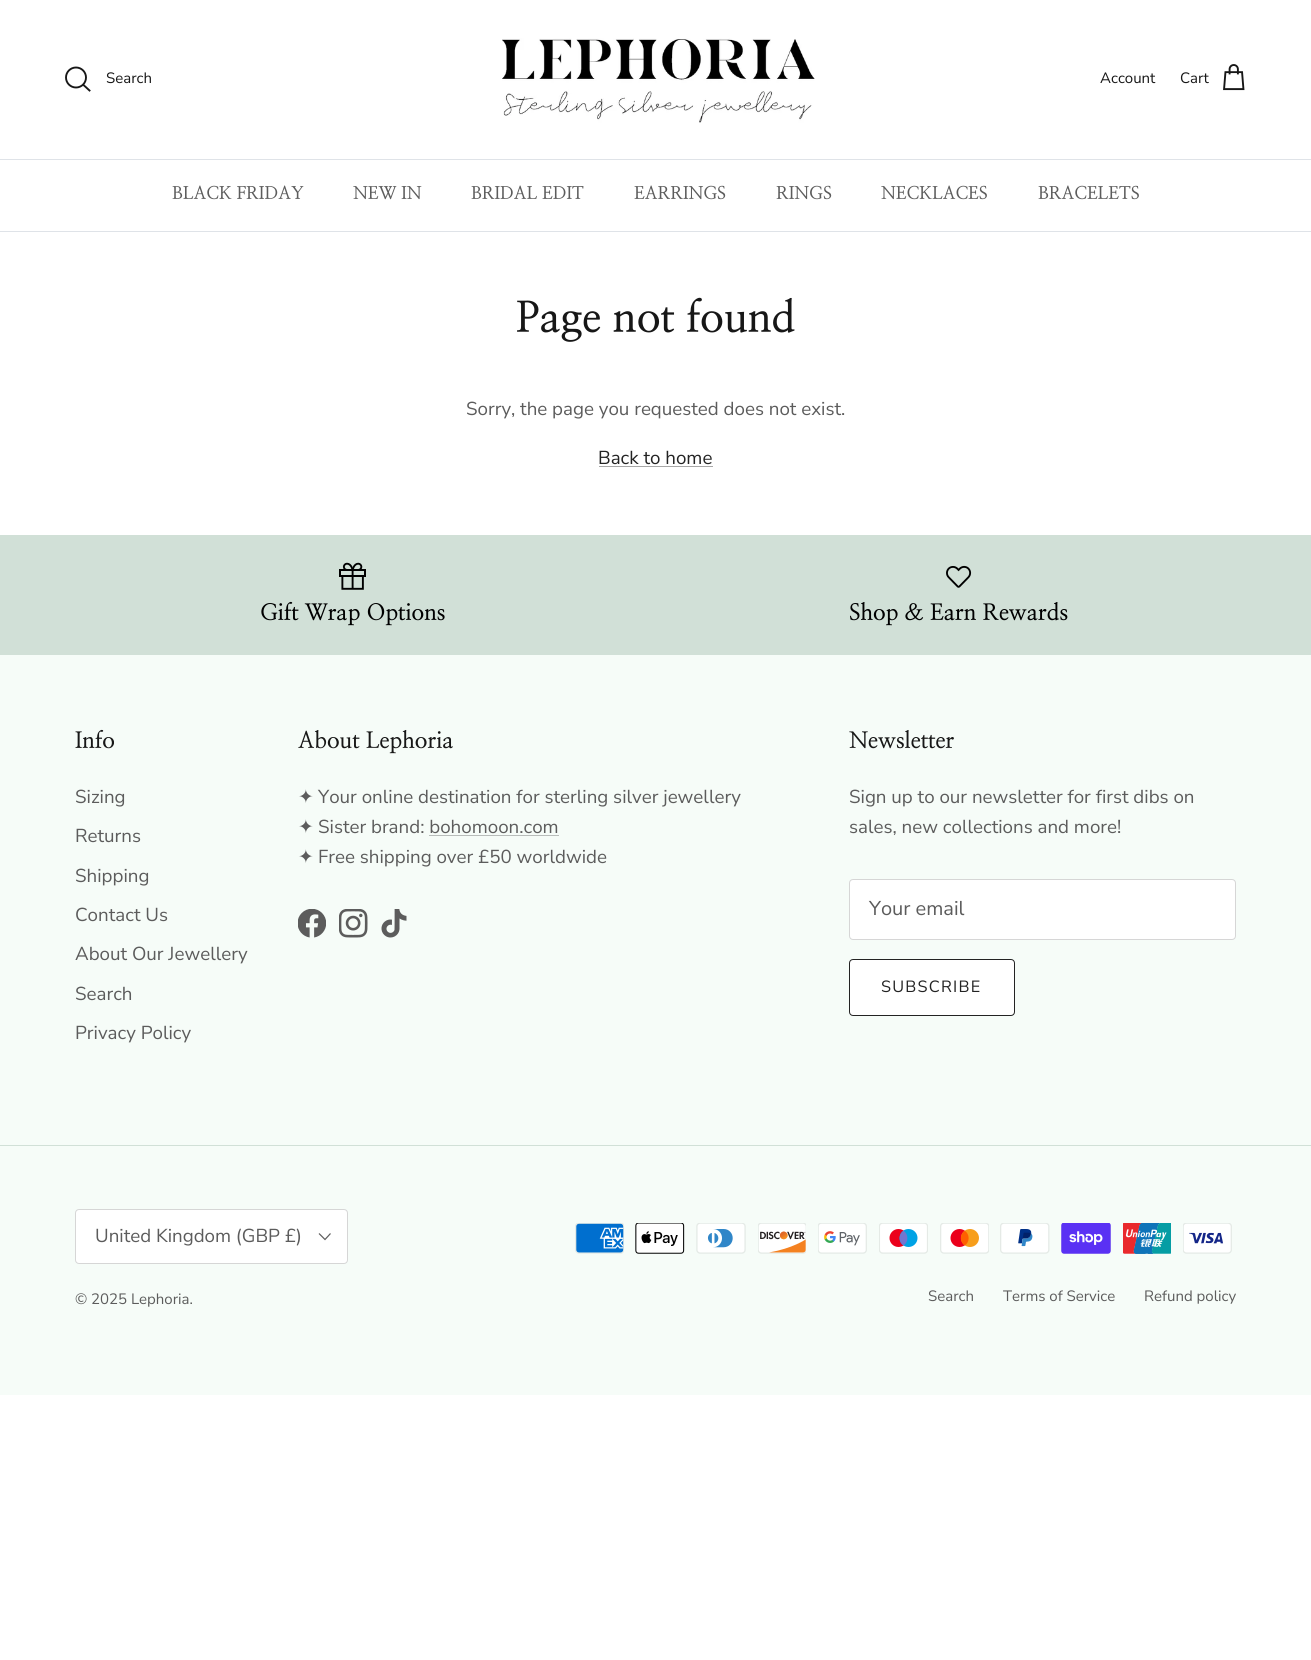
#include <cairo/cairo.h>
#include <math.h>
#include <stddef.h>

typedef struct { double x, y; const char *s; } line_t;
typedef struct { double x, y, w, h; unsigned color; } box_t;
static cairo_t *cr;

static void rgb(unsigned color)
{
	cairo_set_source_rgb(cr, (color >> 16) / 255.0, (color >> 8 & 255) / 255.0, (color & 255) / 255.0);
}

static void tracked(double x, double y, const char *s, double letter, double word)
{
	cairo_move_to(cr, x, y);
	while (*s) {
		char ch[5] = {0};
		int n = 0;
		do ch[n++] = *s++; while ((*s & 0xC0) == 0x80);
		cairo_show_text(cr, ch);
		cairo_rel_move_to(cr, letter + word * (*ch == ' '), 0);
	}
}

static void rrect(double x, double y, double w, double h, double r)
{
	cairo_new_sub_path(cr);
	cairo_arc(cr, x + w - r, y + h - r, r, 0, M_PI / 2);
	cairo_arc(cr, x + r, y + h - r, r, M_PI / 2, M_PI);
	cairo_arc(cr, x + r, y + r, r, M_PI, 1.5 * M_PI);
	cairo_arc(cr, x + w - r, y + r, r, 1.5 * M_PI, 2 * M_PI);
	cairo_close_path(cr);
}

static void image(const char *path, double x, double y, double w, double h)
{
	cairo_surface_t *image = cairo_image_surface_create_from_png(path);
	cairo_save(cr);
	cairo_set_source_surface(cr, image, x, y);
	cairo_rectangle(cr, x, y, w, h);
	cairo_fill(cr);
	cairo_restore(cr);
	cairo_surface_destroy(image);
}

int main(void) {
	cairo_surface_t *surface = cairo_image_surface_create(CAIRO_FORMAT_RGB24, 1311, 1660);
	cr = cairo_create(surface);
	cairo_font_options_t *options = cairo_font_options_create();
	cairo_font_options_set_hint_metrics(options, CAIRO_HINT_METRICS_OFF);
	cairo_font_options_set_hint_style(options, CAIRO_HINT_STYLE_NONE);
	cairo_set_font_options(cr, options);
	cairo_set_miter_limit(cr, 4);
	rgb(0xffffff);
	cairo_paint(cr);
	rgb(0xdfe3e8);
	cairo_rectangle(cr, 0, 159, 1311, 1);
	cairo_fill(cr);
	cairo_arc(cr, 76, 77.5, 10, 0, 2 * M_PI);
	rgb(0x171717);
	cairo_set_line_width(cr, 1.9);
	cairo_stroke(cr);
	cairo_new_path(cr);
	cairo_move_to(cr, 83.5, 85);
	cairo_line_to(cr, 89.5, 90.5);
	cairo_set_line_cap(cr, CAIRO_LINE_CAP_SQUARE);
	cairo_stroke(cr);
	image("img/1.png", 502, 38, 313, 85);
	image("img/2.png", 1223, 64, 22, 27);
	{
		static const box_t items[] = {
			{0, 231, 1311, 1, 0xdfe3e8},
			{599, 466, 114, 1, 0xa7a7a7},
			{0, 535, 1311, 120, 0xd1e0d7},
		};
		for (size_t i = 0; i < sizeof items / sizeof *items; i++) {
			rgb(items[i].color);
			cairo_rectangle(cr, items[i].x, items[i].y, items[i].w, items[i].h);
			cairo_fill(cr);
		}
	}
	image("img/3.png", 339, 562, 27, 28);
	image("img/4.png", 946, 565, 26, 23);
	rgb(0xf6fcf8);
	cairo_rectangle(cr, 0, 655, 1311, 740);
	cairo_fill(cr);
	rgb(0xb8bcba);
	cairo_rectangle(cr, 429, 835, 130, 1);
	cairo_fill(cr);
	image("img/5.png", 298, 909, 28, 29);
	image("img/6.png", 339, 909, 29, 29);
	image("img/7.png", 381, 909, 26, 29);
	rgb(0xffffff);
	rrect(849.5, 879.5, 386, 60, 3.5);
	cairo_fill_preserve(cr);
	rgb(0xd6d6d6);
	cairo_set_line_width(cr, 1);
	cairo_set_line_cap(cr, CAIRO_LINE_CAP_BUTT);
	cairo_stroke(cr);
	rgb(0xffffff);
	rrect(849.5, 959.5, 165, 56, 3.5);
	cairo_fill_preserve(cr);
	rgb(0x232323);
	cairo_stroke(cr);
	rgb(0xd1e0d7);
	cairo_rectangle(cr, 0, 1145, 1311, 1);
	cairo_fill(cr);
	rgb(0xffffff);
	rrect(75.5, 1209.5, 272, 54, 3.5);
	cairo_fill_preserve(cr);
	rgb(0xd6d6d6);
	cairo_stroke(cr);
	cairo_new_path(cr);
	cairo_move_to(cr, 330.5, 1233.5);
	cairo_line_to(cr, 325, 1239.5);
	cairo_line_to(cr, 319, 1233.5);
	rgb(0x5c5c5c);
	cairo_set_line_width(cr, 1.2);
	cairo_stroke(cr);
	image("img/8.png", 575, 1223, 49, 31);
	image("img/9.png", 635, 1223, 50, 31);
	image("img/10.png", 696, 1223, 50, 31);
	image("img/11.png", 758, 1223, 48, 31);
	image("img/12.png", 818, 1223, 49, 31);
	image("img/13.png", 879, 1223, 49, 31);
	image("img/14.png", 940, 1223, 49, 31);
	image("img/15.png", 1000, 1223, 50, 31);
	image("img/16.png", 1061, 1223, 50, 31);
	image("img/17.png", 1123, 1223, 48, 31);
	image("img/18.png", 1183, 1223, 49, 31);
	cairo_select_font_face(cr, "Nunito Sans", CAIRO_FONT_SLANT_NORMAL, CAIRO_FONT_WEIGHT_NORMAL);
	cairo_set_font_size(cr, 15);
	rgb(0x171717);
	{
		static const line_t items[] = {
			{106, 83, "Search"},
			{1100, 83, "Account"},
			{1180, 83, "Cart"},
		};
		for (size_t i = 0; i < sizeof items / sizeof *items; i++) {
			cairo_move_to(cr, items[i].x, items[i].y);
			cairo_show_text(cr, items[i].s);
		}
	}
	cairo_select_font_face(cr, "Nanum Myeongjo", CAIRO_FONT_SLANT_NORMAL, CAIRO_FONT_WEIGHT_BOLD);
	cairo_set_font_size(cr, 17.5);
	rgb(0x5c5c5c);
	{
		static const line_t items[] = {
			{172, 199, "BLACK FRIDAY"},
			{353, 199, "NEW IN"},
			{471, 199, "BRIDAL EDIT"},
			{634, 199, "EARRINGS"},
			{776, 199, "RINGS"},
			{881, 199, "NECKLACES"},
			{1038, 199, "BRACELETS"},
		};
		for (size_t i = 0; i < sizeof items / sizeof *items; i++) {
			cairo_move_to(cr, items[i].x, items[i].y);
			cairo_show_text(cr, items[i].s);
		}
	}
	cairo_set_font_size(cr, 42.5);
	rgb(0x171717);
	cairo_move_to(cr, 516, 332);
	cairo_show_text(cr, "Page not found");
	cairo_select_font_face(cr, "Nunito Sans", CAIRO_FONT_SLANT_NORMAL, CAIRO_FONT_WEIGHT_NORMAL);
	cairo_set_font_size(cr, 18.75);
	rgb(0x5c5c5c);
	cairo_move_to(cr, 466, 415);
	cairo_show_text(cr, "Sorry, the page you requested does not exist.");
	rgb(0x232323);
	cairo_move_to(cr, 598, 464);
	cairo_show_text(cr, "Back to home");
	cairo_select_font_face(cr, "Nanum Myeongjo", CAIRO_FONT_SLANT_NORMAL, CAIRO_FONT_WEIGHT_BOLD);
	cairo_set_font_size(cr, 22.5);
	rgb(0x000000);
	cairo_move_to(cr, 260, 620);
	cairo_show_text(cr, "Gift Wrap Options");
	cairo_move_to(cr, 849, 620);
	cairo_show_text(cr, "Shop & Earn Rewards");
	rgb(0x171717);
	cairo_move_to(cr, 75, 748);
	cairo_show_text(cr, "Info");
	cairo_select_font_face(cr, "Nunito Sans", CAIRO_FONT_SLANT_NORMAL, CAIRO_FONT_WEIGHT_NORMAL);
	cairo_set_font_size(cr, 18.75);
	rgb(0x5c5c5c);
	{
		static const line_t items[] = {
			{75, 803, "Sizing"},
			{75, 842, "Returns"},
			{75, 882, "Shipping"},
			{75, 921, "Contact Us"},
			{75, 960, "About Our Jewellery"},
			{75, 1000, "Search"},
			{75, 1039, "Privacy Policy"},
		};
		for (size_t i = 0; i < sizeof items / sizeof *items; i++) {
			cairo_move_to(cr, items[i].x, items[i].y);
			cairo_show_text(cr, items[i].s);
		}
	}
	cairo_select_font_face(cr, "Nanum Myeongjo", CAIRO_FONT_SLANT_NORMAL, CAIRO_FONT_WEIGHT_BOLD);
	cairo_set_font_size(cr, 22.5);
	rgb(0x171717);
	cairo_move_to(cr, 298, 748);
	cairo_show_text(cr, "About Lephoria");
	cairo_select_font_face(cr, "DejaVu Sans", CAIRO_FONT_SLANT_NORMAL, CAIRO_FONT_WEIGHT_NORMAL);
	cairo_set_font_size(cr, 18.75);
	rgb(0x5c5c5c);
	cairo_move_to(cr, 298, 803);
	cairo_show_text(cr, "✦");
	cairo_select_font_face(cr, "Nunito Sans", CAIRO_FONT_SLANT_NORMAL, CAIRO_FONT_WEIGHT_NORMAL);
	cairo_move_to(cr, 318, 803);
	cairo_show_text(cr, "Your online destination for sterling silver jewellery");
	cairo_select_font_face(cr, "DejaVu Sans", CAIRO_FONT_SLANT_NORMAL, CAIRO_FONT_WEIGHT_NORMAL);
	cairo_move_to(cr, 298, 833);
	cairo_show_text(cr, "✦");
	cairo_select_font_face(cr, "Nunito Sans", CAIRO_FONT_SLANT_NORMAL, CAIRO_FONT_WEIGHT_NORMAL);
	cairo_move_to(cr, 318, 833);
	cairo_show_text(cr, "Sister brand: bohomoon.com");
	cairo_select_font_face(cr, "DejaVu Sans", CAIRO_FONT_SLANT_NORMAL, CAIRO_FONT_WEIGHT_NORMAL);
	cairo_move_to(cr, 298, 863);
	cairo_show_text(cr, "✦");
	cairo_select_font_face(cr, "Nunito Sans", CAIRO_FONT_SLANT_NORMAL, CAIRO_FONT_WEIGHT_NORMAL);
	cairo_move_to(cr, 318, 863);
	cairo_show_text(cr, "Free shipping over £50 worldwide");
	cairo_select_font_face(cr, "Nanum Myeongjo", CAIRO_FONT_SLANT_NORMAL, CAIRO_FONT_WEIGHT_BOLD);
	cairo_set_font_size(cr, 22.5);
	rgb(0x171717);
	cairo_move_to(cr, 849, 748);
	cairo_show_text(cr, "Newsletter");
	cairo_select_font_face(cr, "Nunito Sans", CAIRO_FONT_SLANT_NORMAL, CAIRO_FONT_WEIGHT_NORMAL);
	cairo_set_font_size(cr, 18.75);
	rgb(0x5c5c5c);
	cairo_move_to(cr, 849, 803);
	cairo_show_text(cr, "Sign up to our newsletter for first dibs on");
	cairo_move_to(cr, 849, 833);
	cairo_show_text(cr, "sales, new collections and more!");
	cairo_set_font_size(cr, 20);
	cairo_move_to(cr, 869, 915);
	cairo_show_text(cr, "Your email");
	cairo_set_font_size(cr, 16.25);
	rgb(0x232323);
	tracked(881, 992, "SUBSCRIBE", 1.25, 0);
	cairo_set_font_size(cr, 18.75);
	rgb(0x5c5c5c);
	cairo_move_to(cr, 95, 1242);
	cairo_show_text(cr, "United Kingdom (GBP £)");
	cairo_set_font_size(cr, 15);
	{
		static const line_t items[] = {
			{75, 1304, "© 2025 Lephoria."},
			{928, 1301, "Search"},
			{1003, 1301, "Terms of Service"},
			{1144, 1301, "Refund policy"},
		};
		for (size_t i = 0; i < sizeof items / sizeof *items; i++) {
			cairo_move_to(cr, items[i].x, items[i].y);
			cairo_show_text(cr, items[i].s);
		}
	}
	cairo_surface_write_to_png(surface, "page.png");
	cairo_font_options_destroy(options);
	cairo_destroy(cr);
	cairo_surface_destroy(surface);
	return 0;
}
